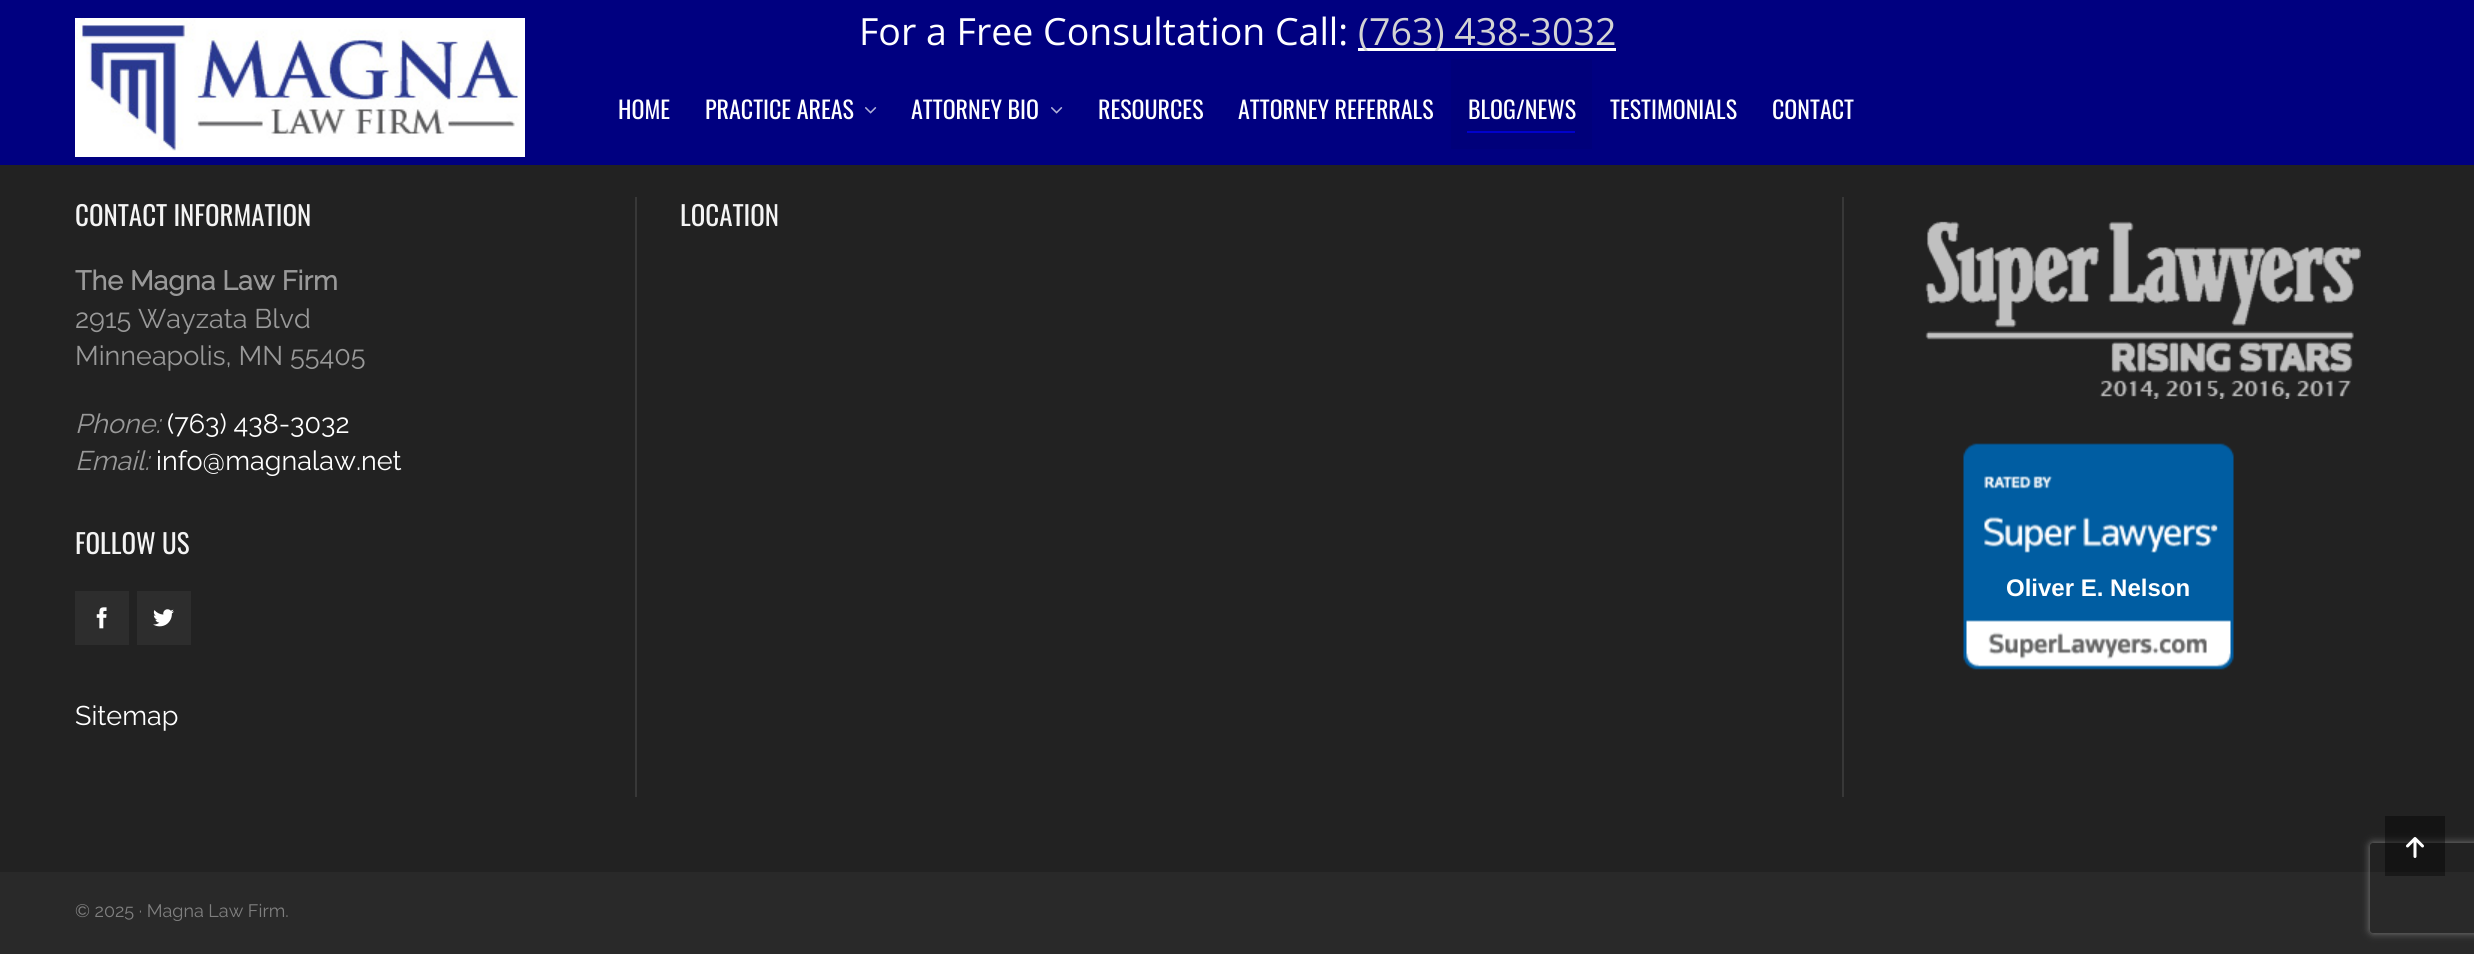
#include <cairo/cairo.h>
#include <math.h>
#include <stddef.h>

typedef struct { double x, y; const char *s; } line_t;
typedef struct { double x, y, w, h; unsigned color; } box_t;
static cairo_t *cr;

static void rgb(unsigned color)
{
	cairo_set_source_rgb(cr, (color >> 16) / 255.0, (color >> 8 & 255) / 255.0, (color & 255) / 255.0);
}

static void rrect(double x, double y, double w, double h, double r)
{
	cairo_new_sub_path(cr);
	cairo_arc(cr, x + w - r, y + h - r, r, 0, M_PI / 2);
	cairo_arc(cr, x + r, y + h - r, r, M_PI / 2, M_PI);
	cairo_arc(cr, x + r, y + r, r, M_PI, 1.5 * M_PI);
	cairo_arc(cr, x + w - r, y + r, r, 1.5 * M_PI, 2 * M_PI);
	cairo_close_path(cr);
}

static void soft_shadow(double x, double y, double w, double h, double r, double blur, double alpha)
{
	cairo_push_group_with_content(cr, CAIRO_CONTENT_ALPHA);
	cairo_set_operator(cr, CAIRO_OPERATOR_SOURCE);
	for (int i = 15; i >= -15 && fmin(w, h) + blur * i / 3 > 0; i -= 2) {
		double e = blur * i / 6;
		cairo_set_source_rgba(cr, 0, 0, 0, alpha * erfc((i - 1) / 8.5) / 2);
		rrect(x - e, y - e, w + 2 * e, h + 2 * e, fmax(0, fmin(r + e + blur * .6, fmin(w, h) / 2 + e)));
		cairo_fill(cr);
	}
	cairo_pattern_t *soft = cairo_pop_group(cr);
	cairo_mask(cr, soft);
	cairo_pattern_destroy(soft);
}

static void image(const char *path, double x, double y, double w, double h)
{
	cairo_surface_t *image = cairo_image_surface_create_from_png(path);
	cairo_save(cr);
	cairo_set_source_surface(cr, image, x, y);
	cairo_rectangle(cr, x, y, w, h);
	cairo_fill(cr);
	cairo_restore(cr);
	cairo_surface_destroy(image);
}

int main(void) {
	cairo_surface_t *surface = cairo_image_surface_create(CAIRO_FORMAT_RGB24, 2474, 954);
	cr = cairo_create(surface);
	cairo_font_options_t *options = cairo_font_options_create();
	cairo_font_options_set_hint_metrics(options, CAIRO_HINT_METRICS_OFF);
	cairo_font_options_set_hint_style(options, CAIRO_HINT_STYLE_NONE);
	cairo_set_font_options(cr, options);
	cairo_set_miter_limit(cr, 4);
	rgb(0x222222);
	cairo_paint(cr);
	rgb(0x000080);
	cairo_rectangle(cr, 0, 0, 2474, 165);
	cairo_fill(cr);
	rgb(0xffffff);
	cairo_rectangle(cr, 1358, 48, 258, 3);
	cairo_fill(cr);
	image("img/1.png", 75, 18, 450, 139);
	image("img/2.png", 865, 107, 12, 7);
	image("img/2.png", 1051, 107, 12, 7);
	{
		static const box_t items[] = {
			{1451, 59, 141, 90, 0x00007a},
			{1467, 131, 108, 2, 0x0101cb},
			{75, 591, 54, 54, 0x2d2d2d},
		};
		for (size_t i = 0; i < sizeof items / sizeof *items; i++) {
			rgb(items[i].color);
			cairo_rectangle(cr, items[i].x, items[i].y, items[i].w, items[i].h);
			cairo_fill(cr);
		}
	}
	image("img/3.png", 96, 607, 11, 22);
	cairo_rectangle(cr, 137, 591, 54, 54);
	cairo_fill(cr);
	image("img/4.png", 153, 609, 21, 18);
	rgb(0x383838);
	cairo_rectangle(cr, 635, 197, 2, 600);
	cairo_fill(cr);
	cairo_rectangle(cr, 1842, 197, 2, 600);
	cairo_fill(cr);
	image("img/5.png", 1925, 221, 436, 178);
	image("img/6.png", 1963, 443, 271, 227);
	rgb(0x292929);
	cairo_rectangle(cr, 0, 872, 2474, 82);
	cairo_fill(cr);
	cairo_save(cr);
	cairo_set_fill_rule(cr, CAIRO_FILL_RULE_EVEN_ODD);
	cairo_new_path(cr);
	cairo_move_to(cr, 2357, 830);
	cairo_line_to(cr, 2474, 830);
	cairo_line_to(cr, 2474, 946);
	cairo_line_to(cr, 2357, 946);
	cairo_close_path(cr);
	cairo_move_to(cr, 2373, 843);
	cairo_line_to(cr, 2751, 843);
	cairo_curve_to(cr, 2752.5, 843, 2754, 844.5, 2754, 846);
	cairo_line_to(cr, 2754, 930);
	cairo_curve_to(cr, 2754, 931.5, 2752.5, 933, 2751, 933);
	cairo_line_to(cr, 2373, 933);
	cairo_curve_to(cr, 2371.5, 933, 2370, 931.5, 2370, 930);
	cairo_line_to(cr, 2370, 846);
	cairo_curve_to(cr, 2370, 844.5, 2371.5, 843, 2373, 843);
	cairo_close_path(cr);
	cairo_clip(cr);
	rgb(0x808080);
	soft_shadow(2370, 843, 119, 90, 3, 4, 1);
	cairo_restore(cr);
	cairo_set_source_rgba(cr, 0, 0, 0, 0.4);
	cairo_rectangle(cr, 2385, 816, 60, 60);
	cairo_fill(cr);
	image("img/7.png", 2406, 837, 18, 21);
	cairo_select_font_face(cr, "Open Sans", CAIRO_FONT_SLANT_NORMAL, CAIRO_FONT_WEIGHT_NORMAL);
	cairo_set_font_size(cr, 37.5);
	rgb(0xffffff);
	cairo_move_to(cr, 859, 45);
	cairo_show_text(cr, "For a Free Consultation Call:");
	rgb(0xd3d3d3);
	cairo_move_to(cr, 1358, 45);
	cairo_show_text(cr, "(763) 438-3032");
	cairo_select_font_face(cr, "Oswald", CAIRO_FONT_SLANT_NORMAL, CAIRO_FONT_WEIGHT_NORMAL);
	cairo_set_font_size(cr, 24);
	rgb(0xffffff);
	{
		static const line_t items[] = {
			{618, 119, "HOME"},
			{705, 119, "PRACTICE AREAS"},
			{911, 119, "ATTORNEY BIO"},
			{1098, 119, "RESOURCES"},
			{1238, 119, "ATTORNEY REFERRALS"},
			{1468, 119, "BLOG/NEWS"},
			{1610, 119, "TESTIMONIALS"},
			{1772, 119, "CONTACT"},
		};
		for (size_t i = 0; i < sizeof items / sizeof *items; i++) {
			cairo_move_to(cr, items[i].x, items[i].y);
			cairo_show_text(cr, items[i].s);
		}
	}
	cairo_set_font_size(cr, 27);
	rgb(0xf4f4f4);
	cairo_move_to(cr, 75, 226);
	cairo_show_text(cr, "CONTACT INFORMATION");
	cairo_select_font_face(cr, "Raleway", CAIRO_FONT_SLANT_NORMAL, CAIRO_FONT_WEIGHT_BOLD);
	rgb(0x999999);
	cairo_move_to(cr, 75, 290);
	cairo_show_text(cr, "The Magna Law Firm");
	cairo_select_font_face(cr, "Raleway Thin", CAIRO_FONT_SLANT_NORMAL, CAIRO_FONT_WEIGHT_NORMAL);
	cairo_move_to(cr, 75, 328);
	cairo_show_text(cr, "2915 Wayzata Blvd");
	cairo_move_to(cr, 75, 365);
	cairo_show_text(cr, "Minneapolis, MN 55405");
	cairo_select_font_face(cr, "Raleway Thin", CAIRO_FONT_SLANT_ITALIC, CAIRO_FONT_WEIGHT_NORMAL);
	cairo_move_to(cr, 75, 433);
	cairo_show_text(cr, "Phone:");
	cairo_select_font_face(cr, "Raleway Thin", CAIRO_FONT_SLANT_NORMAL, CAIRO_FONT_WEIGHT_NORMAL);
	rgb(0xffffff);
	cairo_move_to(cr, 167, 433);
	cairo_show_text(cr, "(763) 438-3032");
	cairo_select_font_face(cr, "Raleway Thin", CAIRO_FONT_SLANT_ITALIC, CAIRO_FONT_WEIGHT_NORMAL);
	rgb(0x999999);
	cairo_move_to(cr, 75, 470);
	cairo_show_text(cr, "Email:");
	cairo_select_font_face(cr, "Raleway Thin", CAIRO_FONT_SLANT_NORMAL, CAIRO_FONT_WEIGHT_NORMAL);
	rgb(0xffffff);
	cairo_move_to(cr, 156, 470);
	cairo_show_text(cr, "info@magnalaw.net");
	cairo_select_font_face(cr, "Oswald", CAIRO_FONT_SLANT_NORMAL, CAIRO_FONT_WEIGHT_NORMAL);
	rgb(0xf4f4f4);
	cairo_move_to(cr, 75, 554);
	cairo_show_text(cr, "FOLLOW US");
	cairo_select_font_face(cr, "Raleway Thin", CAIRO_FONT_SLANT_NORMAL, CAIRO_FONT_WEIGHT_NORMAL);
	rgb(0xffffff);
	cairo_move_to(cr, 75, 725);
	cairo_show_text(cr, "Sitemap");
	cairo_select_font_face(cr, "Oswald", CAIRO_FONT_SLANT_NORMAL, CAIRO_FONT_WEIGHT_NORMAL);
	rgb(0xf4f4f4);
	cairo_move_to(cr, 680, 226);
	cairo_show_text(cr, "LOCATION");
	cairo_select_font_face(cr, "Liberation Sans", CAIRO_FONT_SLANT_NORMAL, CAIRO_FONT_WEIGHT_BOLD);
	cairo_set_font_size(cr, 24);
	rgb(0xffffff);
	cairo_move_to(cr, 2006, 596);
	cairo_show_text(cr, "Oliver E. Nelson");
	cairo_select_font_face(cr, "Raleway Thin", CAIRO_FONT_SLANT_NORMAL, CAIRO_FONT_WEIGHT_NORMAL);
	cairo_set_font_size(cr, 18);
	rgb(0x7f7f7f);
	cairo_move_to(cr, 75, 917);
	cairo_show_text(cr, "© 2025 · Magna Law Firm.");
	cairo_surface_write_to_png(surface, "page.png");
	cairo_font_options_destroy(options);
	cairo_destroy(cr);
	cairo_surface_destroy(surface);
	return 0;
}
